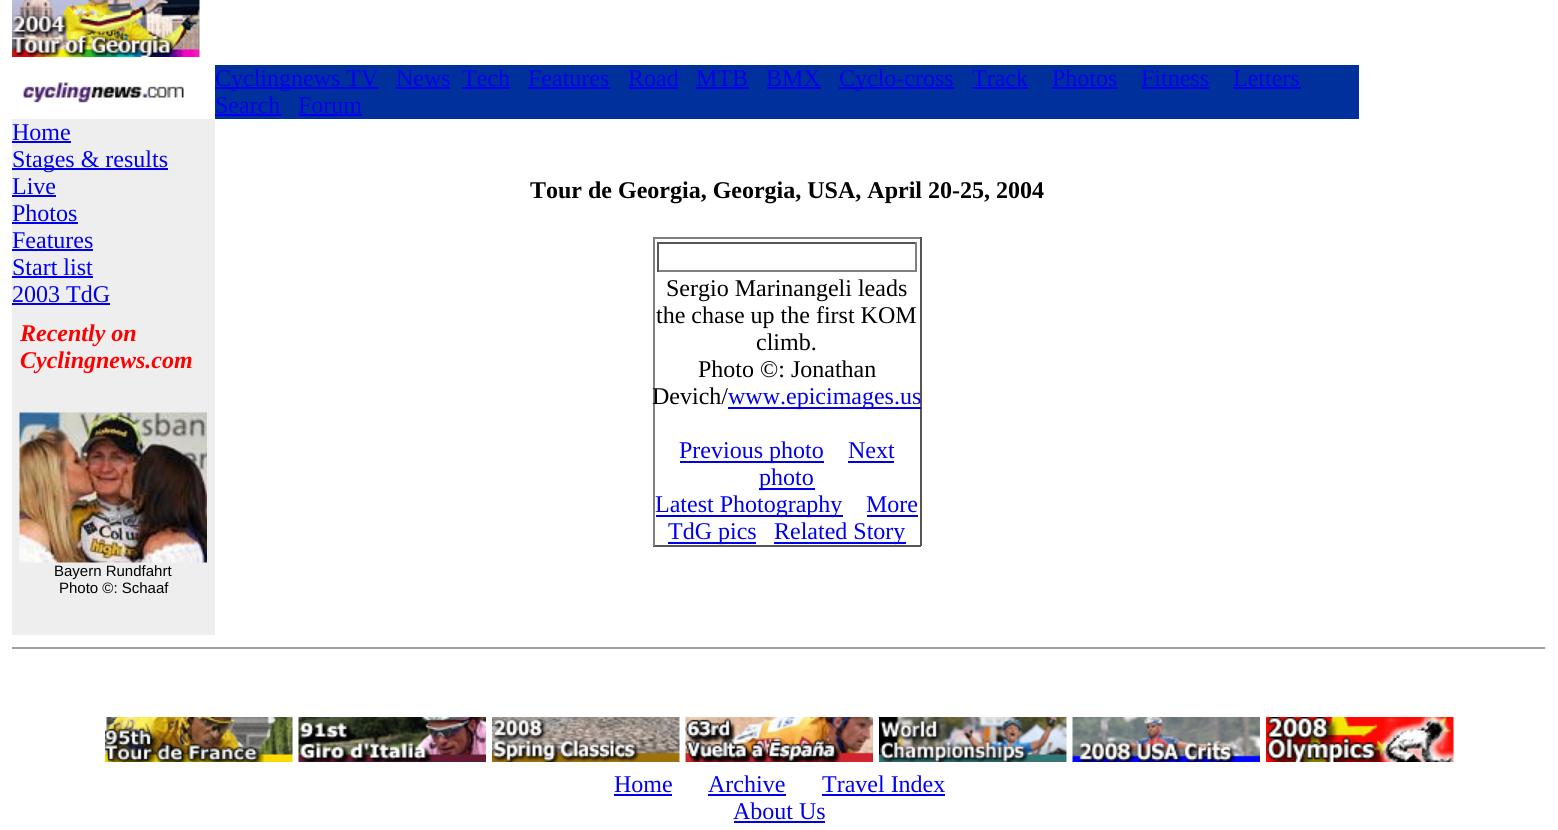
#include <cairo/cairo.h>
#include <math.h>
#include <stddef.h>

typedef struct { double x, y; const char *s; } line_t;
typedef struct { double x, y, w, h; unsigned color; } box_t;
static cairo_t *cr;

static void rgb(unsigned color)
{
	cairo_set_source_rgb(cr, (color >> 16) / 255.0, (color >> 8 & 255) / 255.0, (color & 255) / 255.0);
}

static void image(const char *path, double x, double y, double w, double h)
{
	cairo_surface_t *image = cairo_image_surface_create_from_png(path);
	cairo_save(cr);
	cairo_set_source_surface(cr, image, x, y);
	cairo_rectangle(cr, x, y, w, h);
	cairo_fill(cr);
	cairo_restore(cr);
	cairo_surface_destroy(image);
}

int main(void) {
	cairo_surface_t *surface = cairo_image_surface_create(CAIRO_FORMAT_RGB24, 1558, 830);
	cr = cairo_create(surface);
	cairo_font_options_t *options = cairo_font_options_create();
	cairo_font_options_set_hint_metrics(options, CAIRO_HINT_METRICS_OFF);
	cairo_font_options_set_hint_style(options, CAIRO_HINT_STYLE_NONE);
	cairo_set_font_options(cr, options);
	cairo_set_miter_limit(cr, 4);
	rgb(0xffffff);
	cairo_paint(cr);
	image("img/1.png", 12, 0, 188, 57);
	image("img/2.png", 23, 82, 161, 21);
	{
		static const box_t items[] = {
			{215, 65, 1144, 54, 0x00309c},
			{215, 87, 163, 2, 0x0000ee},
			{396, 87, 54, 2, 0x0000ee},
			{462, 87, 48, 2, 0x0000ee},
			{528, 87, 83, 2, 0x0000ee},
			{629, 87, 49, 2, 0x0000ee},
			{696, 87, 53, 2, 0x0000ee},
			{767, 87, 54, 2, 0x0000ee},
			{839, 87, 115, 2, 0x0000ee},
			{972, 87, 56, 2, 0x0000ee},
			{1052, 87, 66, 2, 0x0000ee},
			{1142, 87, 67, 2, 0x0000ee},
			{1233, 87, 68, 2, 0x0000ee},
			{215, 114, 66, 2, 0x0000ee},
			{299, 114, 63, 2, 0x0000ee},
			{12, 119, 203, 516, 0xeeeeee},
			{12, 141, 59, 2, 0x0000ee},
			{12, 168, 156, 2, 0x0000ee},
			{12, 195, 44, 2, 0x0000ee},
			{12, 222, 66, 2, 0x0000ee},
			{12, 249, 81, 2, 0x0000ee},
			{12, 276, 81, 2, 0x0000ee},
			{12, 303, 98, 2, 0x0000ee},
		};
		for (size_t i = 0; i < sizeof items / sizeof *items; i++) {
			rgb(items[i].color);
			cairo_rectangle(cr, items[i].x, items[i].y, items[i].w, items[i].h);
			cairo_fill(cr);
		}
	}
	image("img/3.png", 19, 412, 188, 151);
	{
		static const box_t items[] = {
			{653, 237, 268, 2, 0x808080},
			{920, 237, 2, 309, 0x555555},
			{653, 545, 268, 2, 0x555555},
			{653, 237, 2, 309, 0x808080},
			{657, 242, 260, 2, 0x555555},
			{915, 242, 2, 30, 0x808080},
			{657, 270, 260, 2, 0x808080},
			{657, 242, 2, 30, 0x555555},
			{728, 407, 193, 2, 0x0000ee},
			{680, 461, 144, 2, 0x0000ee},
			{848, 461, 46, 2, 0x0000ee},
			{759, 488, 56, 2, 0x0000ee},
			{656, 515, 187, 2, 0x0000ee},
			{867, 515, 51, 2, 0x0000ee},
			{668, 542, 88, 2, 0x0000ee},
			{774, 542, 132, 2, 0x0000ee},
			{12, 647, 1535, 2, 0x9f9f9f},
			{1545, 647, 2, 2, 0xeeeeee},
		};
		for (size_t i = 0; i < sizeof items / sizeof *items; i++) {
			rgb(items[i].color);
			cairo_rectangle(cr, items[i].x, items[i].y, items[i].w, items[i].h);
			cairo_fill(cr);
		}
	}
	image("img/4.png", 105, 717, 188, 45);
	image("img/5.png", 298, 717, 188, 45);
	image("img/6.png", 492, 717, 188, 45);
	image("img/7.png", 685, 717, 188, 45);
	image("img/8.png", 879, 717, 188, 45);
	image("img/9.png", 1072, 717, 188, 45);
	image("img/10.png", 1266, 717, 188, 45);
	{
		static const box_t items[] = {
			{614, 794, 58, 2, 0x0000ee},
			{708, 794, 78, 2, 0x0000ee},
			{822, 794, 123, 2, 0x0000ee},
			{734, 821, 91, 2, 0x0000ee},
		};
		for (size_t i = 0; i < sizeof items / sizeof *items; i++) {
			rgb(items[i].color);
			cairo_rectangle(cr, items[i].x, items[i].y, items[i].w, items[i].h);
			cairo_fill(cr);
		}
	}
	cairo_select_font_face(cr, "Liberation Serif", CAIRO_FONT_SLANT_NORMAL, CAIRO_FONT_WEIGHT_NORMAL);
	cairo_set_font_size(cr, 24);
	{
		static const line_t items[] = {
			{215, 86, "Cyclingnews TV"},
			{396, 86, "News"},
			{462, 86, "Tech"},
			{528, 86, "Features"},
			{628, 86, "Road"},
			{696, 86, "MTB"},
			{766, 86, "BMX"},
			{839, 86, "Cyclo-cross"},
			{972, 86, "Track"},
			{1052, 86, "Photos"},
			{1141, 86, "Fitness"},
			{1233, 86, "Letters"},
			{215, 113, "Search"},
			{298, 113, "Forum"},
			{12, 140, "Home"},
			{12, 167, "Stages & results"},
			{12, 194, "Live"},
			{12, 221, "Photos"},
			{12, 248, "Features"},
			{12, 275, "Start list"},
			{12, 302, "2003 TdG"},
		};
		for (size_t i = 0; i < sizeof items / sizeof *items; i++) {
			cairo_move_to(cr, items[i].x, items[i].y);
			cairo_show_text(cr, items[i].s);
		}
	}
	cairo_select_font_face(cr, "Liberation Serif", CAIRO_FONT_SLANT_ITALIC, CAIRO_FONT_WEIGHT_BOLD);
	rgb(0xff0000);
	cairo_move_to(cr, 20, 341);
	cairo_show_text(cr, "Recently on");
	cairo_move_to(cr, 20, 368);
	cairo_show_text(cr, "Cyclingnews.com");
	cairo_select_font_face(cr, "Liberation Sans", CAIRO_FONT_SLANT_NORMAL, CAIRO_FONT_WEIGHT_NORMAL);
	cairo_set_font_size(cr, 15);
	rgb(0x000000);
	cairo_move_to(cr, 54, 576);
	cairo_show_text(cr, "Bayern Rundfahrt");
	cairo_move_to(cr, 59, 593);
	cairo_show_text(cr, "Photo ©: Schaaf");
	cairo_select_font_face(cr, "Liberation Serif", CAIRO_FONT_SLANT_NORMAL, CAIRO_FONT_WEIGHT_BOLD);
	cairo_set_font_size(cr, 24);
	cairo_move_to(cr, 530, 198);
	cairo_show_text(cr, "Tour de Georgia, Georgia, USA, April 20-25, 2004");
	cairo_select_font_face(cr, "Liberation Serif", CAIRO_FONT_SLANT_NORMAL, CAIRO_FONT_WEIGHT_NORMAL);
	{
		static const line_t items[] = {
			{666, 296, "Sergio Marinangeli leads"},
			{656, 323, "the chase up the first KOM"},
			{756, 350, "climb."},
			{698, 377, "Photo ©: Jonathan"},
			{652, 404, "Devich/"},
		};
		for (size_t i = 0; i < sizeof items / sizeof *items; i++) {
			cairo_move_to(cr, items[i].x, items[i].y);
			cairo_show_text(cr, items[i].s);
		}
	}
	rgb(0x0000ee);
	{
		static const line_t items[] = {
			{728, 404, "www.epicimages.us"},
			{679, 458, "Previous photo"},
			{848, 458, "Next"},
			{759, 485, "photo"},
			{655, 512, "Latest Photography"},
			{866, 512, "More"},
			{668, 539, "TdG pics"},
			{774, 539, "Related Story"},
			{614, 792, "Home"},
			{708, 792, "Archive"},
			{822, 792, "Travel Index"},
			{733, 819, "About Us"},
		};
		for (size_t i = 0; i < sizeof items / sizeof *items; i++) {
			cairo_move_to(cr, items[i].x, items[i].y);
			cairo_show_text(cr, items[i].s);
		}
	}
	cairo_surface_write_to_png(surface, "page.png");
	cairo_font_options_destroy(options);
	cairo_destroy(cr);
	cairo_surface_destroy(surface);
	return 0;
}
